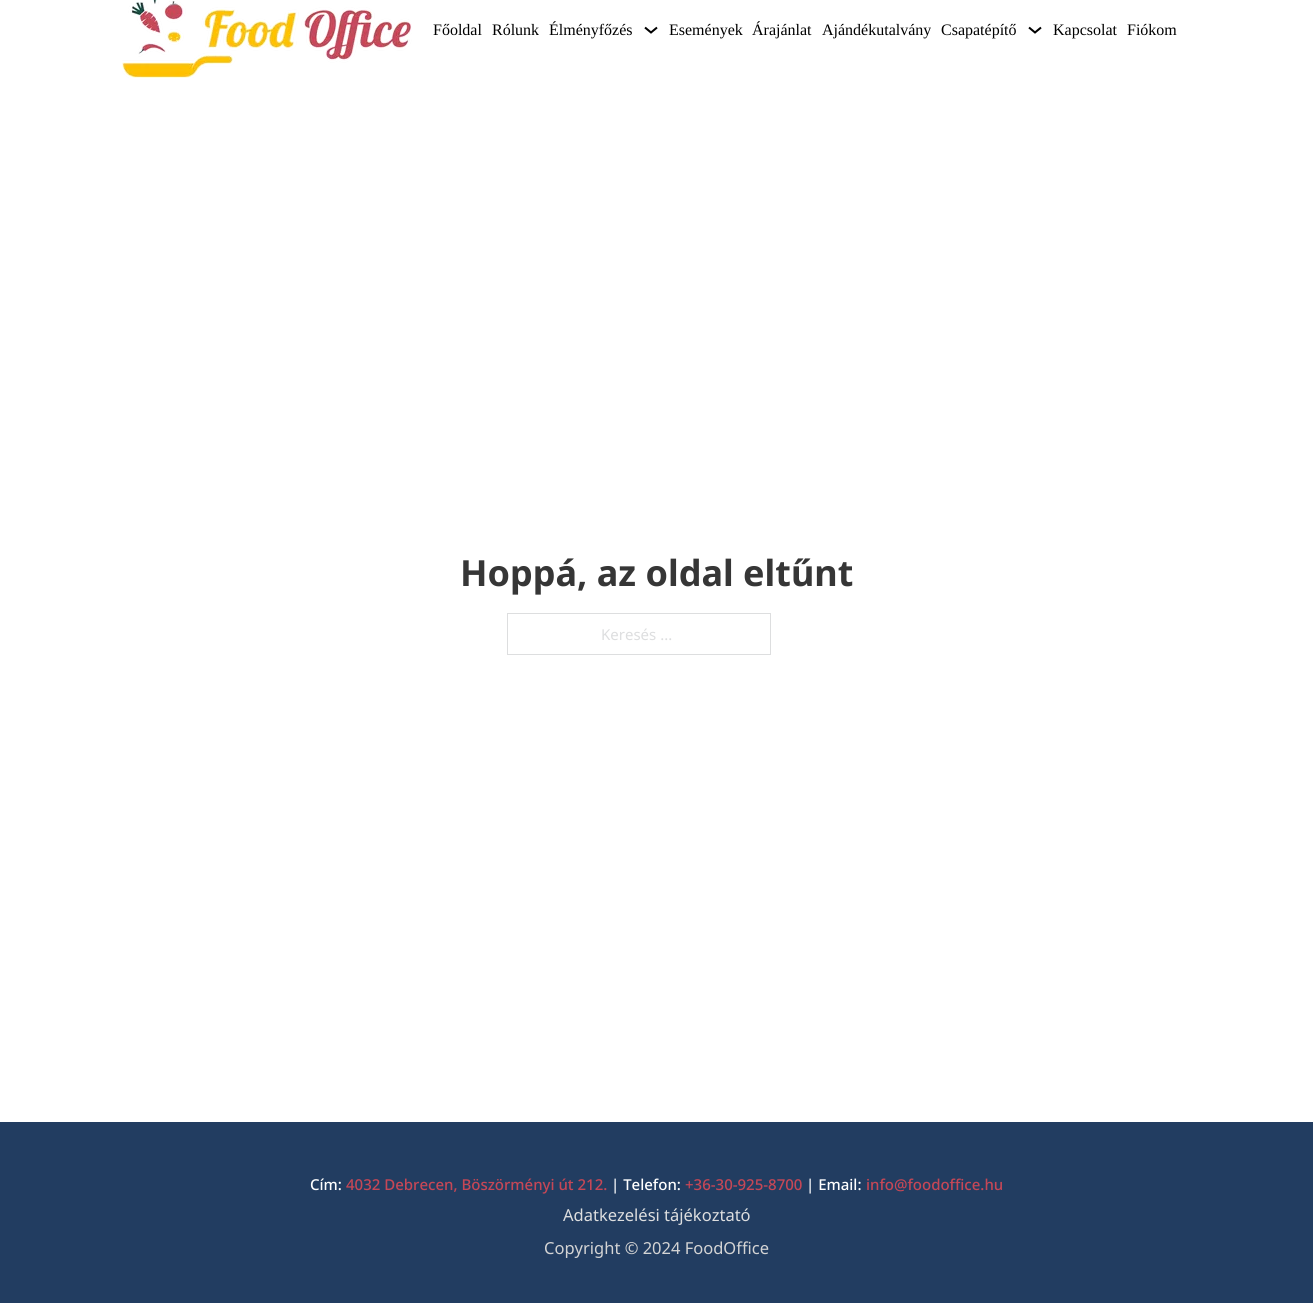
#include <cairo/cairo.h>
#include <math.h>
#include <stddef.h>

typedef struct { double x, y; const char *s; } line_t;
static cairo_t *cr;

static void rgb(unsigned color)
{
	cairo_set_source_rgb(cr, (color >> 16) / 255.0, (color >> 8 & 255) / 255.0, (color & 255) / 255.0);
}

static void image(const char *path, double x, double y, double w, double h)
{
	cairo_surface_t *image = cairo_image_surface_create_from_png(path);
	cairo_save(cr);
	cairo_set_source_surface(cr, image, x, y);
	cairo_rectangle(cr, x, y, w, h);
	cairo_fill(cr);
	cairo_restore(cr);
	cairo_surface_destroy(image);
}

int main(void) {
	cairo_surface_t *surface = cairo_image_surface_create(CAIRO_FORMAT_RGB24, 1313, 1303);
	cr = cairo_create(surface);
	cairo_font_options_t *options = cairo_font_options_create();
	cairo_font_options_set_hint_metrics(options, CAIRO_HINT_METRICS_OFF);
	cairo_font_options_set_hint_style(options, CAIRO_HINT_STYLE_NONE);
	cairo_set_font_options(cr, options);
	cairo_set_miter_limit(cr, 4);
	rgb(0xffffff);
	cairo_paint(cr);
	image("img/1.png", 122, 0, 290, 78);
	cairo_new_path(cr);
	cairo_move_to(cr, 645, 27.5);
	cairo_line_to(cr, 651, 32.5);
	cairo_line_to(cr, 657, 27.5);
	rgb(0x000000);
	cairo_stroke(cr);
	cairo_new_path(cr);
	cairo_move_to(cr, 1029, 27.5);
	cairo_line_to(cr, 1035, 32.5);
	cairo_line_to(cr, 1041, 27.5);
	cairo_stroke(cr);
	cairo_rectangle(cr, 507.5, 613.5, 263, 41);
	rgb(0xdddedf);
	cairo_set_line_width(cr, 1);
	cairo_stroke(cr);
	rgb(0x223d61);
	cairo_rectangle(cr, 0, 1122, 1313, 181);
	cairo_fill(cr);
	cairo_select_font_face(cr, "Liberation Serif", CAIRO_FONT_SLANT_NORMAL, CAIRO_FONT_WEIGHT_NORMAL);
	cairo_set_font_size(cr, 16);
	rgb(0x000000);
	{
		static const line_t items[] = {
			{433, 35, "Főoldal"},
			{492, 35, "Rólunk"},
			{549, 35, "Élményfőzés"},
			{669, 35, "Események"},
			{752, 35, "Árajánlat"},
			{822, 35, "Ajándékutalvány"},
			{941, 35, "Csapatépítő"},
			{1053, 35, "Kapcsolat"},
			{1127, 35, "Fiókom"},
		};
		for (size_t i = 0; i < sizeof items / sizeof *items; i++) {
			cairo_move_to(cr, items[i].x, items[i].y);
			cairo_show_text(cr, items[i].s);
		}
	}
	cairo_select_font_face(cr, "Noto Sans", CAIRO_FONT_SLANT_NORMAL, CAIRO_FONT_WEIGHT_BOLD);
	cairo_set_font_size(cr, 36);
	rgb(0x363636);
	cairo_move_to(cr, 460, 586);
	cairo_show_text(cr, "Hoppá, az oldal eltűnt");
	cairo_select_font_face(cr, "Noto Sans", CAIRO_FONT_SLANT_NORMAL, CAIRO_FONT_WEIGHT_NORMAL);
	cairo_set_font_size(cr, 15);
	rgb(0xdddedf);
	cairo_move_to(cr, 601, 640);
	cairo_show_text(cr, "Keresés ...");
	cairo_select_font_face(cr, "Noto Sans Medium", CAIRO_FONT_SLANT_NORMAL, CAIRO_FONT_WEIGHT_NORMAL);
	rgb(0xffffff);
	cairo_move_to(cr, 310, 1190);
	cairo_show_text(cr, "Cím:");
	rgb(0xc64756);
	cairo_move_to(cr, 346, 1190);
	cairo_show_text(cr, "4032 Debrecen, Böszörményi út 212.");
	rgb(0xffffff);
	cairo_move_to(cr, 611, 1190);
	cairo_show_text(cr, "| Telefon:");
	rgb(0xc64756);
	cairo_move_to(cr, 685, 1190);
	cairo_show_text(cr, "+36-30-925-8700");
	rgb(0xffffff);
	cairo_move_to(cr, 806, 1190);
	cairo_show_text(cr, "| Email:");
	rgb(0xc64756);
	cairo_move_to(cr, 866, 1190);
	cairo_show_text(cr, "info@foodoffice.hu");
	cairo_select_font_face(cr, "Noto Sans", CAIRO_FONT_SLANT_NORMAL, CAIRO_FONT_WEIGHT_NORMAL);
	cairo_set_font_size(cr, 16.5);
	rgb(0xdddedf);
	cairo_move_to(cr, 563, 1221);
	cairo_show_text(cr, "Adatkezelési tájékoztató");
	rgb(0xd4d4d4);
	cairo_move_to(cr, 544, 1254);
	cairo_show_text(cr, "Copyright © 2024 FoodOffice");
	cairo_surface_write_to_png(surface, "page.png");
	cairo_font_options_destroy(options);
	cairo_destroy(cr);
	cairo_surface_destroy(surface);
	return 0;
}
